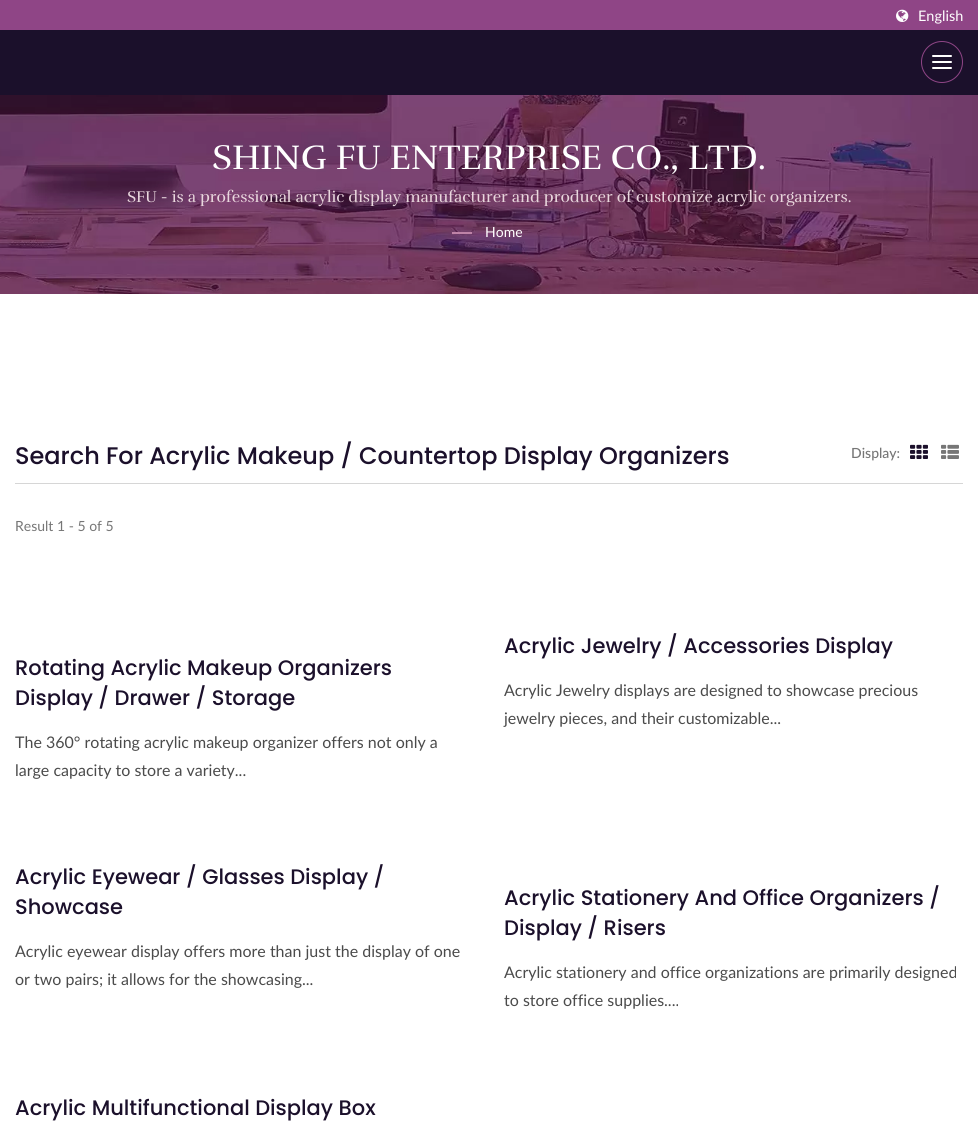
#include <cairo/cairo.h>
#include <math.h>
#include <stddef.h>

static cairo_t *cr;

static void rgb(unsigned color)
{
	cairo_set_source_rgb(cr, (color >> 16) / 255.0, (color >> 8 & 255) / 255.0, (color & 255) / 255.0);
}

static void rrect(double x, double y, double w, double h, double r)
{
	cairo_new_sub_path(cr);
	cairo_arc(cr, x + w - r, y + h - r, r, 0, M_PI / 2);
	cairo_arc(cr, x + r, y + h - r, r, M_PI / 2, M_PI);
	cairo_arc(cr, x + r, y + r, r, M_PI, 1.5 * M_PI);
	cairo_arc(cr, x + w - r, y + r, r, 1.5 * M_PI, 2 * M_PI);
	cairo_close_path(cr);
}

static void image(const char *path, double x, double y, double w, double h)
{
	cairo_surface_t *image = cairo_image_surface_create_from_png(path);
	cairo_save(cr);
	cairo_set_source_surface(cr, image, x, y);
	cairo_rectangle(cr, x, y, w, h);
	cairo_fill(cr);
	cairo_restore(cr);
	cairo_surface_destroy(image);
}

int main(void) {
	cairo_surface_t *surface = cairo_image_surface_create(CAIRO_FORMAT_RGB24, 978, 1123);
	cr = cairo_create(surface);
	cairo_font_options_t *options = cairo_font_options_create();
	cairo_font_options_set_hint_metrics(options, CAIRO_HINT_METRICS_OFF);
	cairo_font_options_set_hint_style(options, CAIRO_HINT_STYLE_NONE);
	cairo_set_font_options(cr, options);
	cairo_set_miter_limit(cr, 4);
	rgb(0xffffff);
	cairo_paint(cr);
	rgb(0x8f4586);
	cairo_rectangle(cr, 0, 0, 978, 30);
	cairo_fill(cr);
	image("img/1.png", 896, 9, 13, 13);
	rgb(0x1b102b);
	cairo_rectangle(cr, 0, 30, 978, 65);
	cairo_fill(cr);
	cairo_arc(cr, 942, 62, 20.5, 0, 2 * M_PI);
	rgb(0x8f4586);
	cairo_set_line_width(cr, 1);
	cairo_stroke(cr);
	rgb(0xffffff);
	rrect(932, 55, 20, 2, 1);
	cairo_fill(cr);
	rrect(932, 61, 20, 2, 1);
	cairo_fill(cr);
	rrect(932, 67, 20, 2, 1);
	cairo_fill(cr);
	image("img/2.png", 0, 95, 978, 199);
	rgb(0xbe83a7);
	cairo_rectangle(cr, 452, 232, 20, 2);
	cairo_fill(cr);
	rgb(0xd6d6d6);
	cairo_rectangle(cr, 15, 483, 948, 1);
	cairo_fill(cr);
	image("img/3.png", 910, 444, 18, 15);
	image("img/4.png", 941, 444, 18, 15);
	cairo_select_font_face(cr, "Lato", CAIRO_FONT_SLANT_NORMAL, CAIRO_FONT_WEIGHT_NORMAL);
	cairo_set_font_size(cr, 14.5);
	rgb(0xffffff);
	cairo_move_to(cr, 918, 21);
	cairo_show_text(cr, "English");
	cairo_select_font_face(cr, "Rufina", CAIRO_FONT_SLANT_NORMAL, CAIRO_FONT_WEIGHT_NORMAL);
	cairo_set_font_size(cr, 35);
	cairo_move_to(cr, 212, 169);
	cairo_show_text(cr, "SHING FU ENTERPRISE CO., LTD.");
	cairo_set_font_size(cr, 16);
	rgb(0xe9d7dd);
	cairo_move_to(cr, 127, 202);
	cairo_show_text(cr, "SFU - is a professional acrylic display manufacturer and producer of customize acrylic organizers.");
	cairo_select_font_face(cr, "Lato", CAIRO_FONT_SLANT_NORMAL, CAIRO_FONT_WEIGHT_NORMAL);
	cairo_set_font_size(cr, 14);
	rgb(0xffffff);
	cairo_move_to(cr, 485, 237);
	cairo_show_text(cr, "Home");
	cairo_select_font_face(cr, "Poppins Medium", CAIRO_FONT_SLANT_NORMAL, CAIRO_FONT_WEIGHT_NORMAL);
	cairo_set_font_size(cr, 24);
	rgb(0x1b102b);
	cairo_move_to(cr, 15, 464);
	cairo_show_text(cr, "Search For Acrylic Makeup / Countertop Display Organizers");
	cairo_select_font_face(cr, "Lato Medium", CAIRO_FONT_SLANT_NORMAL, CAIRO_FONT_WEIGHT_NORMAL);
	cairo_set_font_size(cr, 14);
	rgb(0x767676);
	cairo_move_to(cr, 851, 458);
	cairo_show_text(cr, "Display:");
	cairo_select_font_face(cr, "Lato", CAIRO_FONT_SLANT_NORMAL, CAIRO_FONT_WEIGHT_NORMAL);
	cairo_move_to(cr, 15, 531);
	cairo_show_text(cr, "Result 1 - 5 of 5");
	cairo_select_font_face(cr, "Poppins Medium", CAIRO_FONT_SLANT_NORMAL, CAIRO_FONT_WEIGHT_NORMAL);
	cairo_set_font_size(cr, 21);
	rgb(0x1b102b);
	cairo_move_to(cr, 15, 675);
	cairo_show_text(cr, "Rotating Acrylic Makeup Organizers");
	cairo_move_to(cr, 15, 705);
	cairo_show_text(cr, "Display / Drawer / Storage");
	cairo_select_font_face(cr, "Lato", CAIRO_FONT_SLANT_NORMAL, CAIRO_FONT_WEIGHT_NORMAL);
	cairo_set_font_size(cr, 16);
	rgb(0x4b4b4b);
	cairo_move_to(cr, 15, 748);
	cairo_show_text(cr, "The 360° rotating acrylic makeup organizer offers not only a");
	cairo_move_to(cr, 15, 776);
	cairo_show_text(cr, "large capacity to store a variety...");
	cairo_select_font_face(cr, "Poppins Medium", CAIRO_FONT_SLANT_NORMAL, CAIRO_FONT_WEIGHT_NORMAL);
	cairo_set_font_size(cr, 21);
	rgb(0x1b102b);
	cairo_move_to(cr, 504, 653);
	cairo_show_text(cr, "Acrylic Jewelry / Accessories Display");
	cairo_select_font_face(cr, "Lato", CAIRO_FONT_SLANT_NORMAL, CAIRO_FONT_WEIGHT_NORMAL);
	cairo_set_font_size(cr, 16);
	rgb(0x4b4b4b);
	cairo_move_to(cr, 504, 696);
	cairo_show_text(cr, "Acrylic Jewelry displays are designed to showcase precious");
	cairo_move_to(cr, 504, 724);
	cairo_show_text(cr, "jewelry pieces, and their customizable...");
	cairo_select_font_face(cr, "Poppins Medium", CAIRO_FONT_SLANT_NORMAL, CAIRO_FONT_WEIGHT_NORMAL);
	cairo_set_font_size(cr, 21);
	rgb(0x1b102b);
	cairo_move_to(cr, 15, 884);
	cairo_show_text(cr, "Acrylic Eyewear / Glasses Display /");
	cairo_move_to(cr, 15, 914);
	cairo_show_text(cr, "Showcase");
	cairo_select_font_face(cr, "Lato", CAIRO_FONT_SLANT_NORMAL, CAIRO_FONT_WEIGHT_NORMAL);
	cairo_set_font_size(cr, 16);
	rgb(0x4b4b4b);
	cairo_move_to(cr, 15, 957);
	cairo_show_text(cr, "Acrylic eyewear display offers more than just the display of one");
	cairo_move_to(cr, 15, 985);
	cairo_show_text(cr, "or two pairs; it allows for the showcasing...");
	cairo_select_font_face(cr, "Poppins Medium", CAIRO_FONT_SLANT_NORMAL, CAIRO_FONT_WEIGHT_NORMAL);
	cairo_set_font_size(cr, 21);
	rgb(0x1b102b);
	cairo_move_to(cr, 504, 905);
	cairo_show_text(cr, "Acrylic Stationery And Office Organizers /");
	cairo_move_to(cr, 504, 935);
	cairo_show_text(cr, "Display / Risers");
	cairo_select_font_face(cr, "Lato", CAIRO_FONT_SLANT_NORMAL, CAIRO_FONT_WEIGHT_NORMAL);
	cairo_set_font_size(cr, 16);
	rgb(0x4b4b4b);
	cairo_move_to(cr, 504, 978);
	cairo_show_text(cr, "Acrylic stationery and office organizations are primarily designed");
	cairo_move_to(cr, 504, 1006);
	cairo_show_text(cr, "to store office supplies....");
	cairo_select_font_face(cr, "Poppins Medium", CAIRO_FONT_SLANT_NORMAL, CAIRO_FONT_WEIGHT_NORMAL);
	cairo_set_font_size(cr, 21);
	rgb(0x1b102b);
	cairo_move_to(cr, 15, 1115);
	cairo_show_text(cr, "Acrylic Multifunctional Display Box");
	cairo_surface_write_to_png(surface, "page.png");
	cairo_font_options_destroy(options);
	cairo_destroy(cr);
	cairo_surface_destroy(surface);
	return 0;
}
